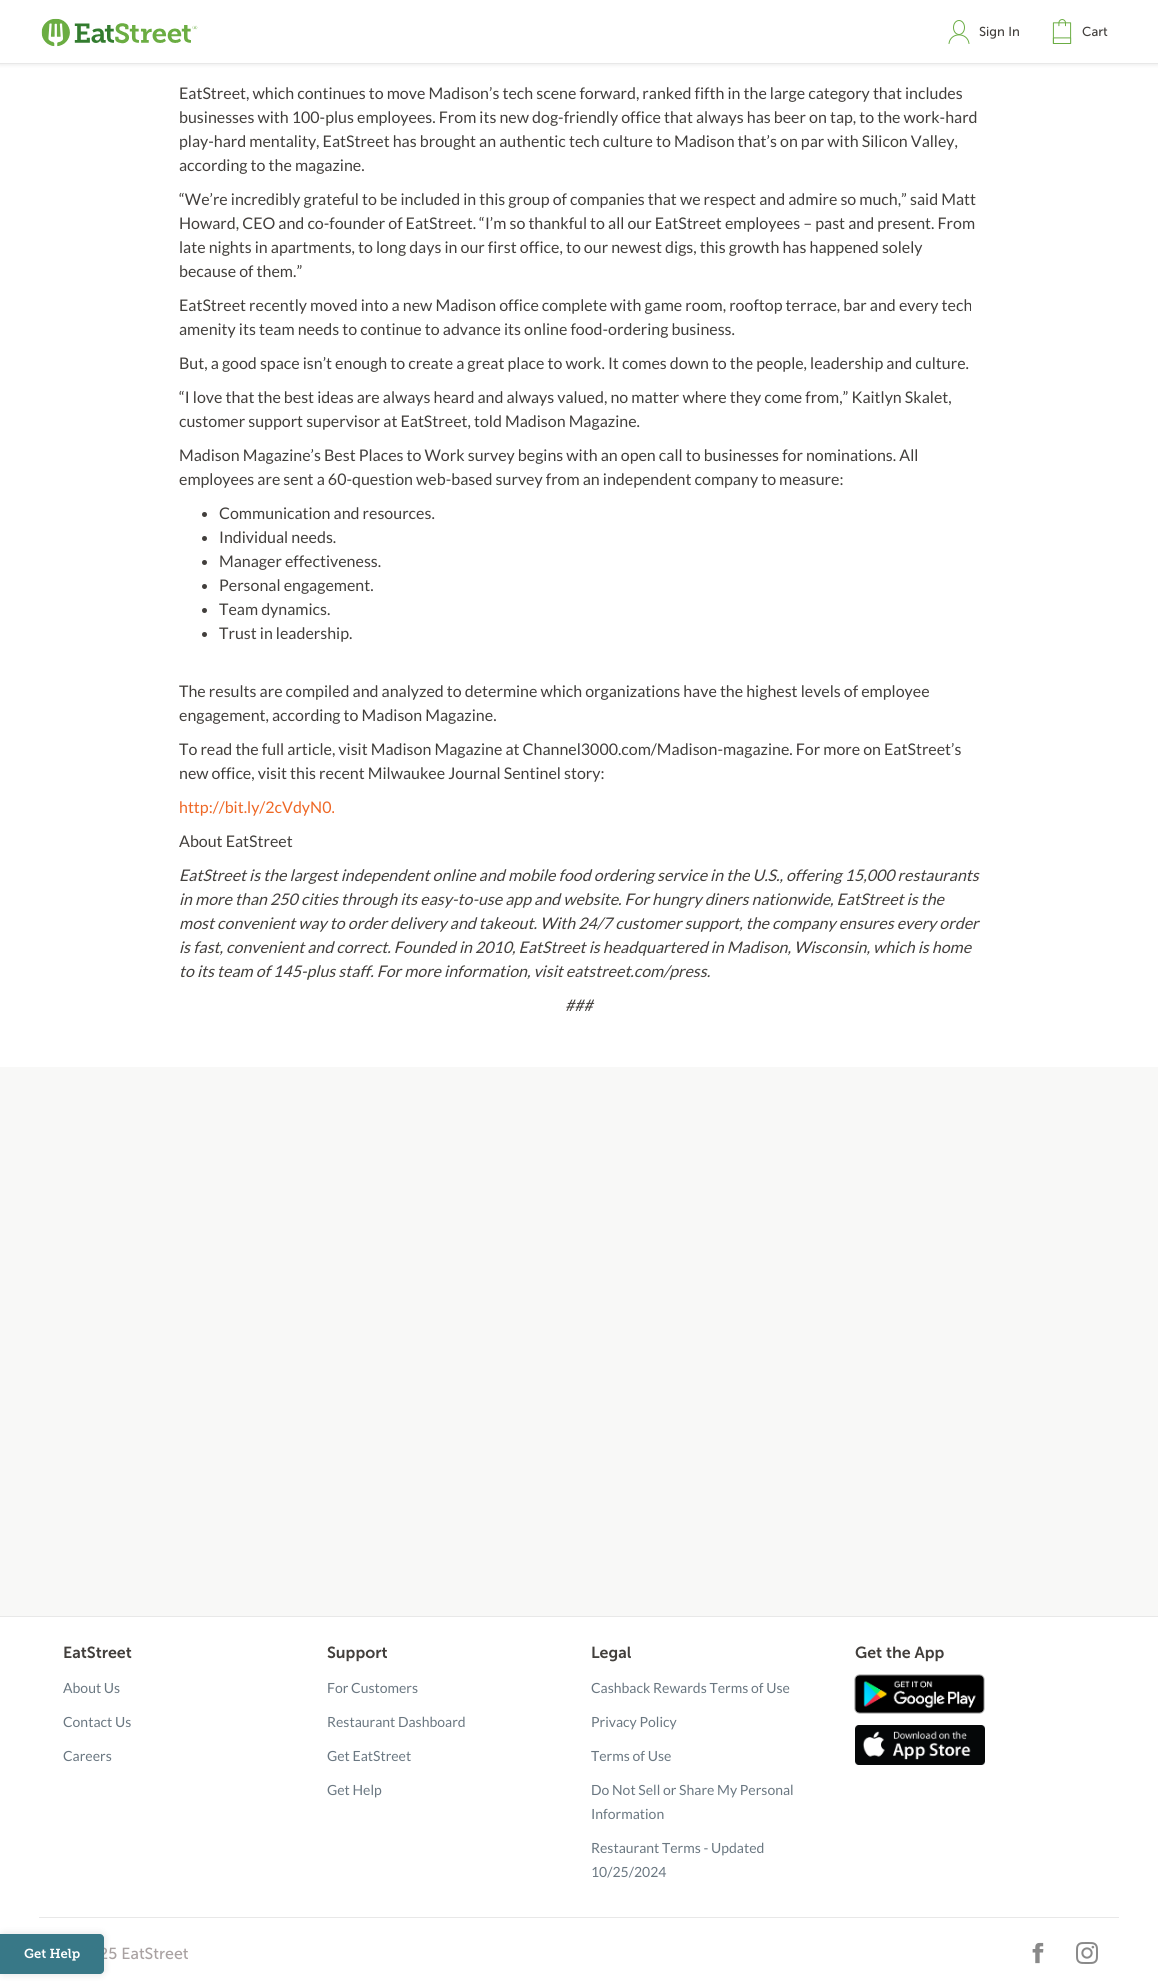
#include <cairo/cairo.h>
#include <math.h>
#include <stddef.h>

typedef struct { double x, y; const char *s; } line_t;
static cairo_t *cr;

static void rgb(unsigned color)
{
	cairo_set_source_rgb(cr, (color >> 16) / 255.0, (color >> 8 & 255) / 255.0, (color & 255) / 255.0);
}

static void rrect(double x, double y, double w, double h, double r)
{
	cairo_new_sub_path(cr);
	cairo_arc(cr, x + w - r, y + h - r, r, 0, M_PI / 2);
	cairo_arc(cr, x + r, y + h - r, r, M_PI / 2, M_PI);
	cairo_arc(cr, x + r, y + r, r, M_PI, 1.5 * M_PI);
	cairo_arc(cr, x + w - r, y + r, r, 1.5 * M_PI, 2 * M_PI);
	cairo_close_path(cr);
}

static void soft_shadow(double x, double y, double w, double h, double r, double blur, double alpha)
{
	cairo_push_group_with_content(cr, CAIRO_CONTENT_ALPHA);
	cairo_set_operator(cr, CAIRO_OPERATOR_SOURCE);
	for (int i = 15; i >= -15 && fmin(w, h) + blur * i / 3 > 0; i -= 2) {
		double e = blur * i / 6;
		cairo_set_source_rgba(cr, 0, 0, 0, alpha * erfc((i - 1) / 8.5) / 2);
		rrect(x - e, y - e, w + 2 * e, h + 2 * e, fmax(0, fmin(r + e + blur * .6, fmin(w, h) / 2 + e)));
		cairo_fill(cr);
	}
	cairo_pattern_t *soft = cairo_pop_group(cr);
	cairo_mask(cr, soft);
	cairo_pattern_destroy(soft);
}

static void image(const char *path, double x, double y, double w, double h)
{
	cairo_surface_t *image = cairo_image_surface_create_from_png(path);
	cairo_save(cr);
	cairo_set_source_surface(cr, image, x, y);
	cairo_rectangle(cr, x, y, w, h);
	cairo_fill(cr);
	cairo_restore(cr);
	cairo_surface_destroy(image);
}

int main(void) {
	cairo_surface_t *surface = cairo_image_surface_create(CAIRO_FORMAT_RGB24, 1158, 1987);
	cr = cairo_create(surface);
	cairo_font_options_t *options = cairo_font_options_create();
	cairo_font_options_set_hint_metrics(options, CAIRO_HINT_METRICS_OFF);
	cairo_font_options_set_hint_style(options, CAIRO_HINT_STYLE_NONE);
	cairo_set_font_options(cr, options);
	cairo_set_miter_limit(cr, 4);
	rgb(0xf8f8f7);
	cairo_paint(cr);
	rgb(0xffffff);
	cairo_rectangle(cr, 0, 64, 1158, 1003);
	cairo_fill(cr);
	rgb(0x000000);
	soft_shadow(0, 1, 1158, 64, 0, 2, 0.08);
	rgb(0xffffff);
	cairo_rectangle(cr, 0, 0, 1158, 63);
	cairo_fill(cr);
	rgb(0xe8e8e8);
	cairo_rectangle(cr, 0, 63, 1158, 1);
	cairo_fill(cr);
	image("img/1.png", 41, 18, 157, 29);
	cairo_new_path(cr);
	cairo_move_to(cr, 969, 43.5);
	cairo_curve_to(cr, 967.5, 32, 950.5, 32, 949, 43.5);
	rgb(0x6bad44);
	cairo_set_line_width(cr, 1);
	cairo_set_line_cap(cr, CAIRO_LINE_CAP_ROUND);
	cairo_stroke(cr);
	cairo_new_path(cr);
	cairo_move_to(cr, 959, 20.5);
	cairo_curve_to(cr, 962, 20.5, 964.5, 23.5, 964.5, 27.5);
	cairo_curve_to(cr, 964.5, 31.5, 962, 34.5, 959, 34.5);
	cairo_curve_to(cr, 956, 34.5, 953.5, 31.5, 953.5, 27.5);
	cairo_curve_to(cr, 953.5, 23.5, 956, 20.5, 959, 20.5);
	cairo_close_path(cr);
	cairo_set_line_cap(cr, CAIRO_LINE_CAP_BUTT);
	cairo_stroke(cr);
	image("img/2.png", 1052, 19, 20, 25);
	rgb(0x423f3c);
	cairo_arc(cr, 204.5, 514.5, 2.5, 0, 2 * M_PI);
	cairo_fill(cr);
	cairo_arc(cr, 204.5, 538.5, 2.5, 0, 2 * M_PI);
	cairo_fill(cr);
	cairo_arc(cr, 204.5, 562.5, 2.5, 0, 2 * M_PI);
	cairo_fill(cr);
	cairo_arc(cr, 204.5, 586.5, 2.5, 0, 2 * M_PI);
	cairo_fill(cr);
	cairo_arc(cr, 204.5, 610.5, 2.5, 0, 2 * M_PI);
	cairo_fill(cr);
	cairo_arc(cr, 204.5, 634.5, 2.5, 0, 2 * M_PI);
	cairo_fill(cr);
	rgb(0xffffff);
	cairo_rectangle(cr, 0, 1617, 1158, 370);
	cairo_fill(cr);
	rgb(0x000000);
	soft_shadow(-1, 1933, 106, 42, 5, 3.5, 0.1);
	rgb(0xe8e8e8);
	cairo_rectangle(cr, 0, 1616, 1158, 1);
	cairo_fill(cr);
	image("img/3.png", 854, 1674, 131, 40);
	image("img/4.png", 855, 1725, 130, 40);
	cairo_rectangle(cr, 39, 1917, 1080, 1);
	cairo_fill(cr);
	image("img/5.png", 1032, 1942, 12, 22);
	image("img/6.png", 1076, 1942, 22, 22);
	cairo_select_font_face(cr, "Museo Sans", CAIRO_FONT_SLANT_NORMAL, CAIRO_FONT_WEIGHT_NORMAL);
	cairo_set_font_size(cr, 13);
	rgb(0x423f3c);
	cairo_move_to(cr, 979, 36);
	cairo_show_text(cr, "Sign In");
	cairo_move_to(cr, 1082, 36);
	cairo_show_text(cr, "Cart");
	cairo_select_font_face(cr, "Lato", CAIRO_FONT_SLANT_NORMAL, CAIRO_FONT_WEIGHT_NORMAL);
	cairo_set_font_size(cr, 16);
	{
		static const line_t items[] = {
			{179, 99, "EatStreet, which continues to move Madison’s tech scene forward, ranked fifth in the large category that includes"},
			{179, 123, "businesses with 100-plus employees. From its new dog-friendly office that always has beer on tap, to the work-hard"},
			{179, 147, "play-hard mentality, EatStreet has brought an authentic tech culture to Madison that’s on par with Silicon Valley,"},
			{179, 171, "according to the magazine."},
			{179, 205, "“We’re incredibly grateful to be included in this group of companies that we respect and admire so much,” said Matt"},
			{179, 229, "Howard, CEO and co-founder of EatStreet. “I’m so thankful to all our EatStreet employees – past and present. From"},
			{179, 253, "late nights in apartments, to long days in our first office, to our newest digs, this growth has happened solely"},
			{179, 277, "because of them.”"},
			{179, 311, "EatStreet recently moved into a new Madison office complete with game room, rooftop terrace, bar and every tech"},
			{179, 335, "amenity its team needs to continue to advance its online food-ordering business."},
			{179, 369, "But, a good space isn’t enough to create a great place to work. It comes down to the people, leadership and culture."},
			{179, 403, "“I love that the best ideas are always heard and always valued, no matter where they come from,” Kaitlyn Skalet,"},
			{179, 427, "customer support supervisor at EatStreet, told Madison Magazine."},
			{179, 461, "Madison Magazine’s Best Places to Work survey begins with an open call to businesses for nominations. All"},
			{179, 485, "employees are sent a 60-question web-based survey from an independent company to measure:"},
			{219, 519, "Communication and resources."},
			{219, 543, "Individual needs."},
			{219, 567, "Manager effectiveness."},
			{219, 591, "Personal engagement."},
			{219, 615, "Team dynamics."},
			{219, 639, "Trust in leadership."},
			{179, 697, "The results are compiled and analyzed to determine which organizations have the highest levels of employee"},
			{179, 721, "engagement, according to Madison Magazine."},
			{179, 755, "To read the full article, visit Madison Magazine at Channel3000.com/Madison-magazine. For more on EatStreet’s"},
			{179, 779, "new office, visit this recent Milwaukee Journal Sentinel story:"},
		};
		for (size_t i = 0; i < sizeof items / sizeof *items; i++) {
			cairo_move_to(cr, items[i].x, items[i].y);
			cairo_show_text(cr, items[i].s);
		}
	}
	rgb(0xee6826);
	cairo_move_to(cr, 179, 813);
	cairo_show_text(cr, "http://bit.ly/2cVdyN0.");
	rgb(0x423f3c);
	cairo_move_to(cr, 179, 847);
	cairo_show_text(cr, "About EatStreet");
	cairo_select_font_face(cr, "Lato", CAIRO_FONT_SLANT_ITALIC, CAIRO_FONT_WEIGHT_NORMAL);
	{
		static const line_t items[] = {
			{179, 881, "EatStreet is the largest independent online and mobile food ordering service in the U.S., offering 15,000 restaurants"},
			{179, 905, "in more than 250 cities through its easy-to-use app and website. For hungry diners nationwide, EatStreet is the"},
			{179, 929, "most convenient way to order delivery and takeout. With 24/7 customer support, the company ensures every order"},
			{179, 953, "is fast, convenient and correct. Founded in 2010, EatStreet is headquartered in Madison, Wisconsin, which is home"},
			{179, 977, "to its team of 145-plus staff. For more information, visit eatstreet.com/press."},
			{565, 1011, "###"},
		};
		for (size_t i = 0; i < sizeof items / sizeof *items; i++) {
			cairo_move_to(cr, items[i].x, items[i].y);
			cairo_show_text(cr, items[i].s);
		}
	}
	cairo_select_font_face(cr, "Museo Sans SemiBold", CAIRO_FONT_SLANT_NORMAL, CAIRO_FONT_WEIGHT_NORMAL);
	cairo_move_to(cr, 63, 1658);
	cairo_show_text(cr, "EatStreet");
	cairo_select_font_face(cr, "Lato", CAIRO_FONT_SLANT_NORMAL, CAIRO_FONT_WEIGHT_NORMAL);
	cairo_set_font_size(cr, 14);
	rgb(0x6a7781);
	{
		static const line_t items[] = {
			{63, 1693, "About Us"},
			{63, 1727, "Contact Us"},
			{63, 1761, "Careers"},
		};
		for (size_t i = 0; i < sizeof items / sizeof *items; i++) {
			cairo_move_to(cr, items[i].x, items[i].y);
			cairo_show_text(cr, items[i].s);
		}
	}
	cairo_select_font_face(cr, "Museo Sans SemiBold", CAIRO_FONT_SLANT_NORMAL, CAIRO_FONT_WEIGHT_NORMAL);
	cairo_set_font_size(cr, 16);
	rgb(0x423f3c);
	cairo_move_to(cr, 327, 1658);
	cairo_show_text(cr, "Support");
	cairo_select_font_face(cr, "Lato", CAIRO_FONT_SLANT_NORMAL, CAIRO_FONT_WEIGHT_NORMAL);
	cairo_set_font_size(cr, 14);
	rgb(0x6a7781);
	{
		static const line_t items[] = {
			{327, 1693, "For Customers"},
			{327, 1727, "Restaurant Dashboard"},
			{327, 1761, "Get EatStreet"},
			{327, 1795, "Get Help"},
		};
		for (size_t i = 0; i < sizeof items / sizeof *items; i++) {
			cairo_move_to(cr, items[i].x, items[i].y);
			cairo_show_text(cr, items[i].s);
		}
	}
	cairo_select_font_face(cr, "Museo Sans SemiBold", CAIRO_FONT_SLANT_NORMAL, CAIRO_FONT_WEIGHT_NORMAL);
	cairo_set_font_size(cr, 16);
	rgb(0x423f3c);
	cairo_move_to(cr, 591, 1658);
	cairo_show_text(cr, "Legal");
	cairo_select_font_face(cr, "Lato", CAIRO_FONT_SLANT_NORMAL, CAIRO_FONT_WEIGHT_NORMAL);
	cairo_set_font_size(cr, 14);
	rgb(0x6a7781);
	{
		static const line_t items[] = {
			{591, 1693, "Cashback Rewards Terms of Use"},
			{591, 1727, "Privacy Policy"},
			{591, 1761, "Terms of Use"},
			{591, 1795, "Do Not Sell or Share My Personal"},
			{591, 1819, "Information"},
			{591, 1853, "Restaurant Terms - Updated"},
			{591, 1877, "10/25/2024"},
		};
		for (size_t i = 0; i < sizeof items / sizeof *items; i++) {
			cairo_move_to(cr, items[i].x, items[i].y);
			cairo_show_text(cr, items[i].s);
		}
	}
	cairo_select_font_face(cr, "Museo Sans SemiBold", CAIRO_FONT_SLANT_NORMAL, CAIRO_FONT_WEIGHT_NORMAL);
	cairo_set_font_size(cr, 16);
	rgb(0x423f3c);
	cairo_move_to(cr, 855, 1658);
	cairo_show_text(cr, "Get the App");
	cairo_select_font_face(cr, "Museo Sans", CAIRO_FONT_SLANT_NORMAL, CAIRO_FONT_WEIGHT_NORMAL);
	rgb(0xa9a2a2);
	cairo_move_to(cr, 99, 1959);
	cairo_show_text(cr, "25 EatStreet");
	rgb(0x387887);
	cairo_new_path(cr);
	cairo_move_to(cr, 0, 1934);
	cairo_line_to(cr, 100, 1934);
	cairo_curve_to(cr, 102, 1934, 104, 1936, 104, 1938);
	cairo_line_to(cr, 104, 1970);
	cairo_curve_to(cr, 104, 1972, 102, 1974, 100, 1974);
	cairo_line_to(cr, 0, 1974);
	cairo_close_path(cr);
	cairo_fill(cr);
	cairo_select_font_face(cr, "Museo Slab SemiBold", CAIRO_FONT_SLANT_NORMAL, CAIRO_FONT_WEIGHT_NORMAL);
	cairo_set_font_size(cr, 13);
	rgb(0xffffff);
	cairo_move_to(cr, 24, 1958);
	cairo_show_text(cr, "Get Help");
	cairo_surface_write_to_png(surface, "page.png");
	cairo_font_options_destroy(options);
	cairo_destroy(cr);
	cairo_surface_destroy(surface);
	return 0;
}
